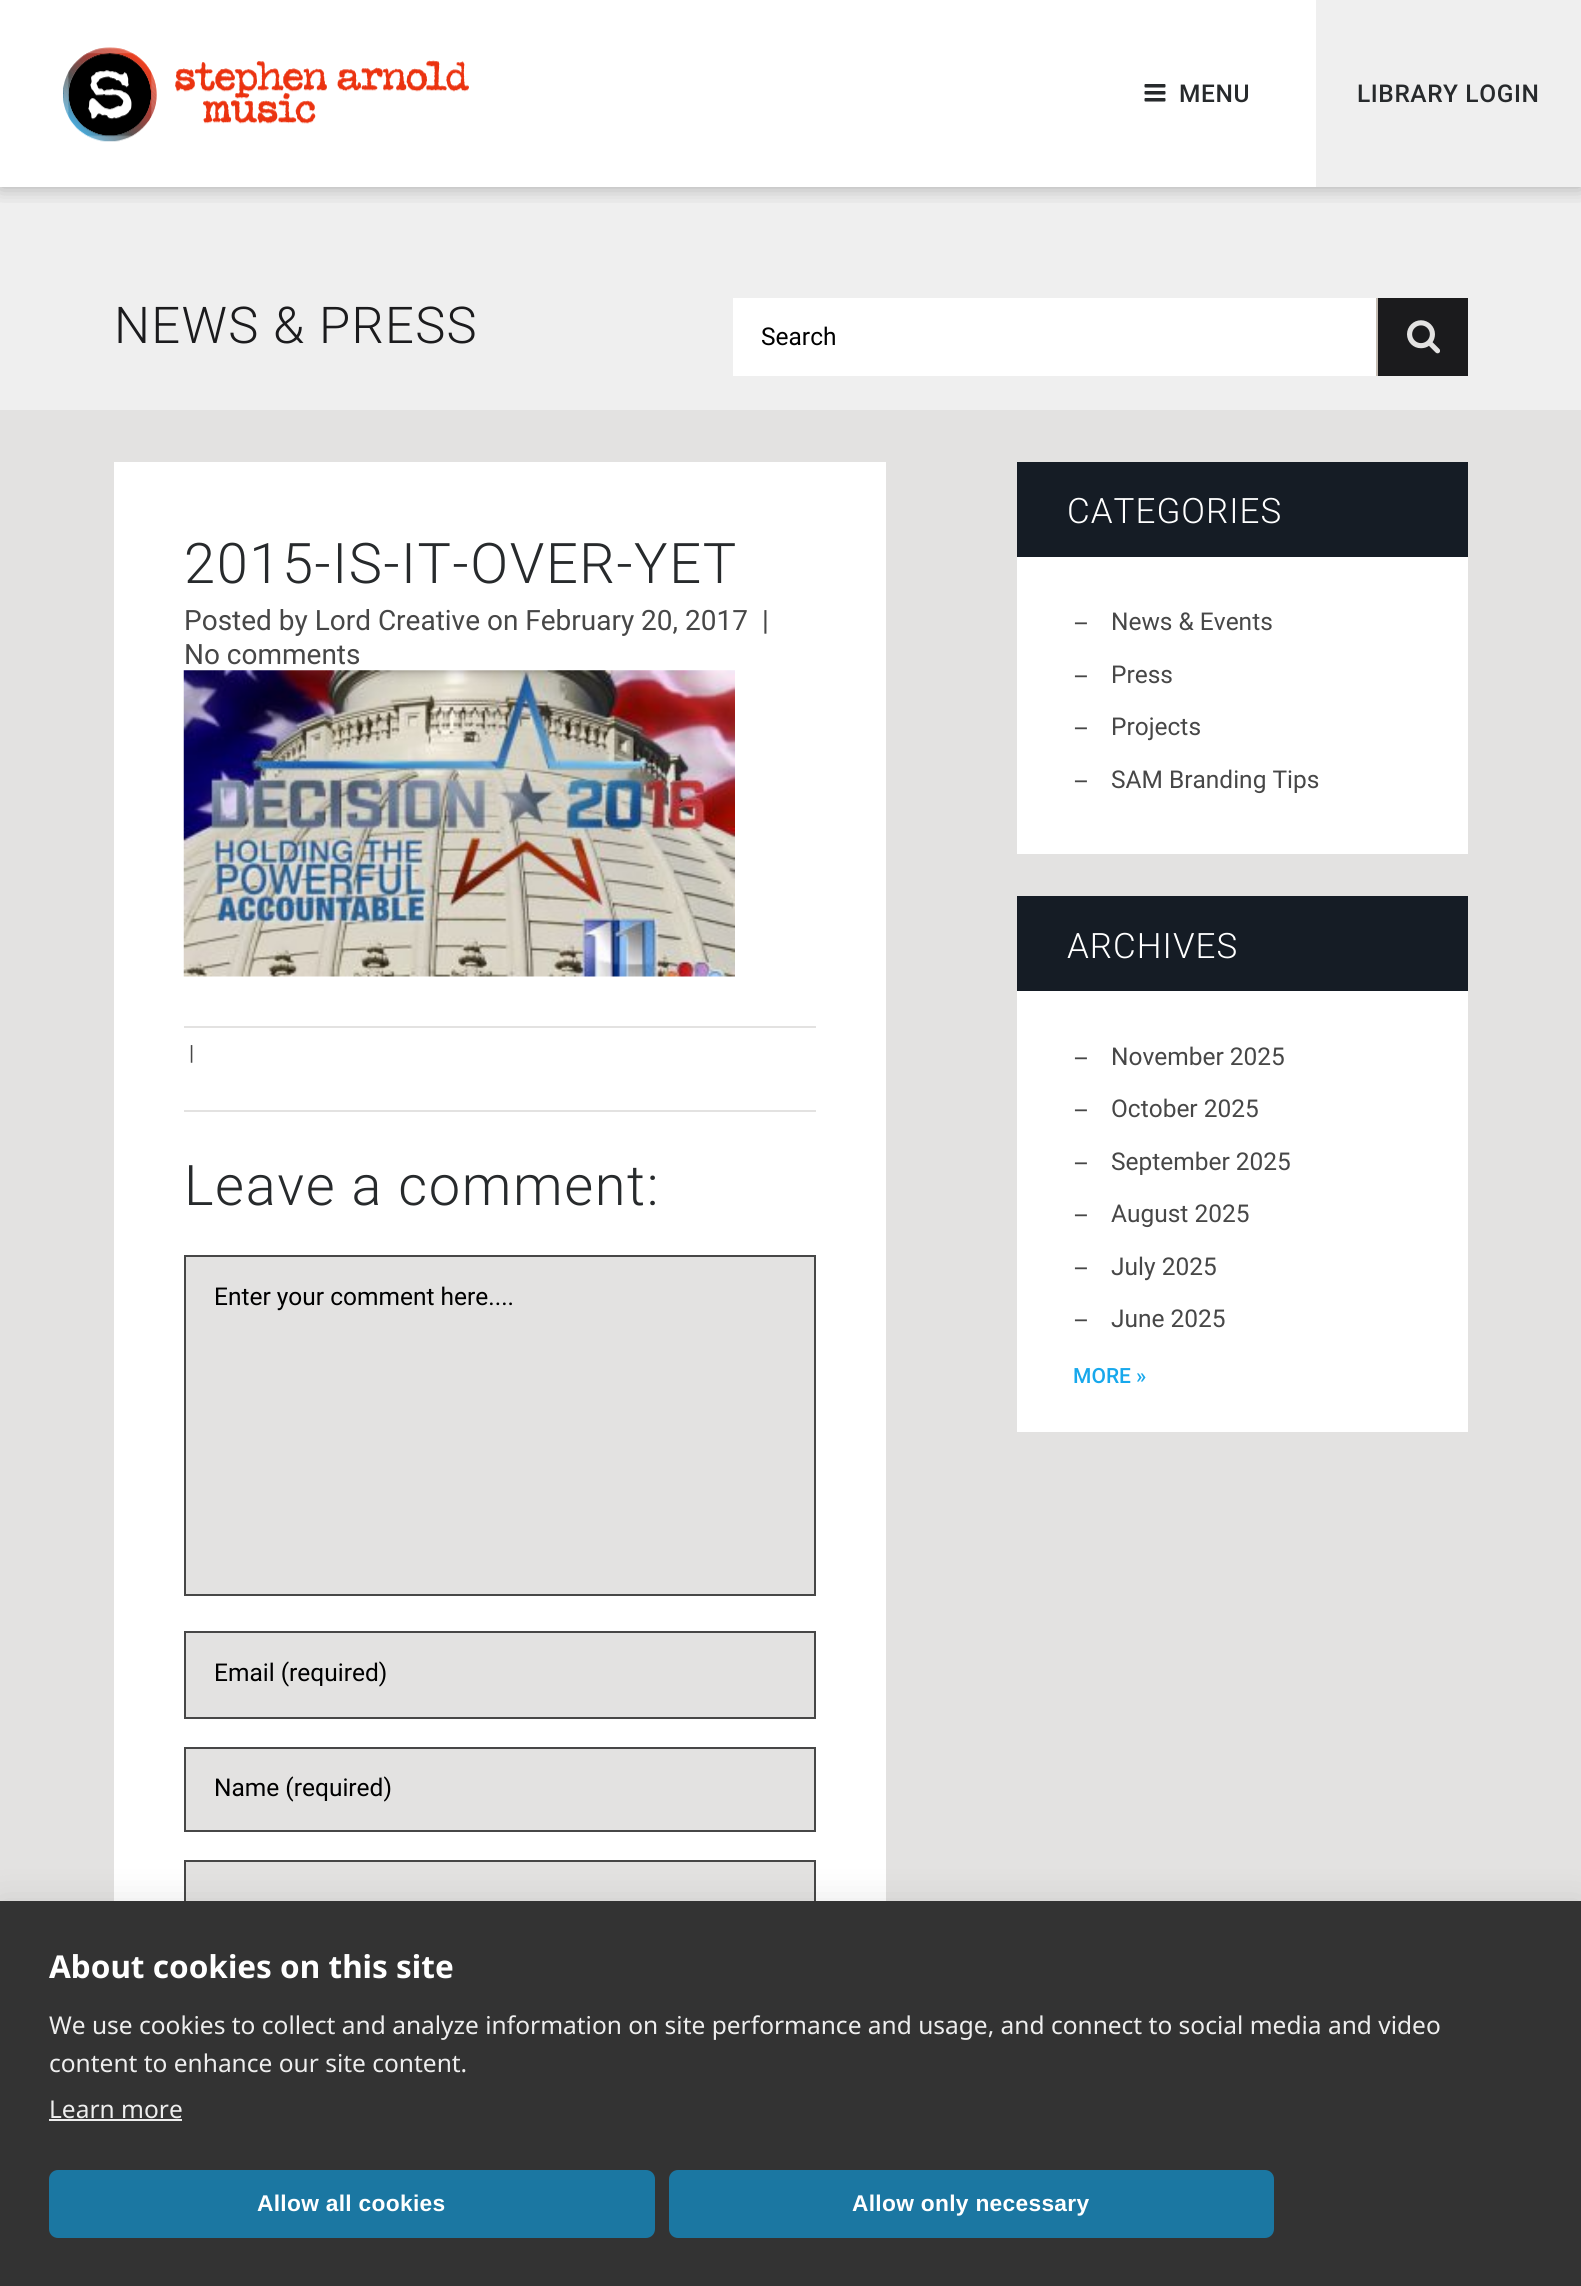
#include <cairo/cairo.h>
#include <math.h>
#include <stddef.h>

typedef struct { double x, y; const char *s; } line_t;
typedef struct { double x, y, w, h; unsigned color; } box_t;
static cairo_t *cr;

static void rgb(unsigned color)
{
	cairo_set_source_rgb(cr, (color >> 16) / 255.0, (color >> 8 & 255) / 255.0, (color & 255) / 255.0);
}

static void tracked(double x, double y, const char *s, double letter, double word)
{
	cairo_move_to(cr, x, y);
	while (*s) {
		char ch[5] = {0};
		int n = 0;
		do ch[n++] = *s++; while ((*s & 0xC0) == 0x80);
		cairo_show_text(cr, ch);
		cairo_rel_move_to(cr, letter + word * (*ch == ' '), 0);
	}
}

static void rrect(double x, double y, double w, double h, double r)
{
	cairo_new_sub_path(cr);
	cairo_arc(cr, x + w - r, y + h - r, r, 0, M_PI / 2);
	cairo_arc(cr, x + r, y + h - r, r, M_PI / 2, M_PI);
	cairo_arc(cr, x + r, y + r, r, M_PI, 1.5 * M_PI);
	cairo_arc(cr, x + w - r, y + r, r, 1.5 * M_PI, 2 * M_PI);
	cairo_close_path(cr);
}

static void soft_shadow(double x, double y, double w, double h, double r, double blur, double alpha)
{
	cairo_push_group_with_content(cr, CAIRO_CONTENT_ALPHA);
	cairo_set_operator(cr, CAIRO_OPERATOR_SOURCE);
	for (int i = 15; i >= -15 && fmin(w, h) + blur * i / 3 > 0; i -= 2) {
		double e = blur * i / 6;
		cairo_set_source_rgba(cr, 0, 0, 0, alpha * erfc((i - 1) / 8.5) / 2);
		rrect(x - e, y - e, w + 2 * e, h + 2 * e, fmax(0, fmin(r + e + blur * .6, fmin(w, h) / 2 + e)));
		cairo_fill(cr);
	}
	cairo_pattern_t *soft = cairo_pop_group(cr);
	cairo_mask(cr, soft);
	cairo_pattern_destroy(soft);
}

static void image(const char *path, double x, double y, double w, double h)
{
	cairo_surface_t *image = cairo_image_surface_create_from_png(path);
	cairo_save(cr);
	cairo_set_source_surface(cr, image, x, y);
	cairo_rectangle(cr, x, y, w, h);
	cairo_fill(cr);
	cairo_restore(cr);
	cairo_surface_destroy(image);
}

int main(void) {
	cairo_surface_t *surface = cairo_image_surface_create(CAIRO_FORMAT_RGB24, 1581, 2286);
	cr = cairo_create(surface);
	cairo_font_options_t *options = cairo_font_options_create();
	cairo_font_options_set_hint_metrics(options, CAIRO_HINT_METRICS_OFF);
	cairo_font_options_set_hint_style(options, CAIRO_HINT_STYLE_NONE);
	cairo_set_font_options(cr, options);
	cairo_set_miter_limit(cr, 4);
	rgb(0xffffff);
	cairo_paint(cr);
	rgb(0xefefef);
	cairo_rectangle(cr, 0, 187, 1581, 223);
	cairo_fill(cr);
	cairo_save(cr);
	cairo_rectangle(cr, 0, 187, 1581, 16);
	cairo_clip(cr);
	rgb(0x000000);
	soft_shadow(0, 0, 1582, 187, 0, 10.5, 0.3);
	cairo_restore(cr);
	image("img/1.png", 63, 47, 406, 95);
	image("img/2.png", 1144, 84, 22, 18);
	{
		static const box_t items[] = {
			{1316, 0, 265, 187, 0xefefef},
			{733, 298, 643, 78, 0xffffff},
			{1378, 298, 90, 78, 0x1b1b1d},
		};
		for (size_t i = 0; i < sizeof items / sizeof *items; i++) {
			rgb(items[i].color);
			cairo_rectangle(cr, items[i].x, items[i].y, items[i].w, items[i].h);
			cairo_fill(cr);
		}
	}
	image("img/3.png", 1407, 320, 33, 34);
	{
		static const box_t items[] = {
			{1376, 298, 2, 78, 0xc4bcb3},
			{0, 410, 1581, 1491, 0xe3e2e1},
			{114, 462, 772, 1439, 0xffffff},
		};
		for (size_t i = 0; i < sizeof items / sizeof *items; i++) {
			rgb(items[i].color);
			cairo_rectangle(cr, items[i].x, items[i].y, items[i].w, items[i].h);
			cairo_fill(cr);
		}
	}
	image("img/4.png", 183, 670, 552, 307);
	rgb(0xe3e2e1);
	cairo_rectangle(cr, 184, 1026, 632, 2);
	cairo_fill(cr);
	cairo_rectangle(cr, 184, 1110, 632, 2);
	cairo_fill(cr);
	cairo_rectangle(cr, 185, 1256, 630, 339);
	cairo_fill_preserve(cr);
	rgb(0x474747);
	cairo_stroke(cr);
	rgb(0xe3e2e1);
	cairo_rectangle(cr, 185, 1632, 630, 86);
	cairo_fill_preserve(cr);
	rgb(0x474747);
	cairo_stroke(cr);
	rgb(0xe3e2e1);
	cairo_rectangle(cr, 185, 1748, 630, 83);
	cairo_fill_preserve(cr);
	rgb(0x474747);
	cairo_stroke(cr);
	rgb(0xe3e2e1);
	cairo_rectangle(cr, 186, 1862, 628, 39);
	cairo_fill(cr);
	cairo_rectangle(cr, 185, 1861, 630, 86);
	rgb(0x474747);
	cairo_stroke(cr);
	{
		static const box_t items[] = {
			{1017, 557, 451, 297, 0xffffff},
			{1017, 462, 451, 95, 0x151c25},
			{1017, 991, 451, 441, 0xffffff},
			{1017, 896, 451, 95, 0x151c25},
		};
		for (size_t i = 0; i < sizeof items / sizeof *items; i++) {
			rgb(items[i].color);
			cairo_rectangle(cr, items[i].x, items[i].y, items[i].w, items[i].h);
			cairo_fill(cr);
		}
	}
	rgb(0x000000);
	soft_shadow(0, 1901, 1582, 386, 0, 17.5, 0.1);
	rgb(0x333333);
	cairo_rectangle(cr, 0, 1901, 1581, 385);
	cairo_fill(cr);
	rgb(0xeeeeee);
	cairo_rectangle(cr, 49, 2119, 133, 2);
	cairo_fill(cr);
	rgb(0x1b77a2);
	rrect(49, 2170, 606, 68, 9);
	cairo_fill(cr);
	rrect(669, 2170, 605, 68, 9);
	cairo_fill(cr);
	cairo_select_font_face(cr, "Roboto Medium", CAIRO_FONT_SLANT_NORMAL, CAIRO_FONT_WEIGHT_NORMAL);
	cairo_set_font_size(cr, 24.5);
	rgb(0x272a2c);
	tracked(1179, 102, "MENU", 0.6, 0);
	tracked(1357, 102, "LIBRARY LOGIN", 0.6, 0);
	cairo_select_font_face(cr, "Roboto Light", CAIRO_FONT_SLANT_NORMAL, CAIRO_FONT_WEIGHT_NORMAL);
	cairo_set_font_size(cr, 50.75);
	rgb(0x1b1b1d);
	tracked(114, 343, "NEWS & PRESS", 1.25, 0);
	cairo_select_font_face(cr, "Roboto", CAIRO_FONT_SLANT_NORMAL, CAIRO_FONT_WEIGHT_NORMAL);
	cairo_set_font_size(cr, 24.5);
	rgb(0x000000);
	cairo_move_to(cr, 761, 345);
	cairo_show_text(cr, "Search");
	cairo_select_font_face(cr, "Roboto Light", CAIRO_FONT_SLANT_NORMAL, CAIRO_FONT_WEIGHT_NORMAL);
	cairo_set_font_size(cr, 56);
	rgb(0x272a2c);
	tracked(184, 583, "2015-IS-IT-OVER-YET", 1.6, 0);
	cairo_select_font_face(cr, "Roboto", CAIRO_FONT_SLANT_NORMAL, CAIRO_FONT_WEIGHT_NORMAL);
	cairo_set_font_size(cr, 28);
	rgb(0x474747);
	{
		static const line_t items[] = {
			{184, 630, "Posted by Lord Creative on February 20, 2017"},
			{762, 630, "|"},
			{184, 664, "No comments"},
		};
		for (size_t i = 0; i < sizeof items / sizeof *items; i++) {
			cairo_move_to(cr, items[i].x, items[i].y);
			cairo_show_text(cr, items[i].s);
		}
	}
	cairo_set_font_size(cr, 21);
	cairo_move_to(cr, 189, 1060);
	cairo_show_text(cr, "|");
	cairo_select_font_face(cr, "Roboto Light", CAIRO_FONT_SLANT_NORMAL, CAIRO_FONT_WEIGHT_NORMAL);
	cairo_set_font_size(cr, 56);
	rgb(0x272a2c);
	tracked(184, 1205, "Leave a comment:", 1.6, 0);
	cairo_select_font_face(cr, "Roboto", CAIRO_FONT_SLANT_NORMAL, CAIRO_FONT_WEIGHT_NORMAL);
	cairo_set_font_size(cr, 24.5);
	rgb(0x000000);
	{
		static const line_t items[] = {
			{214, 1305, "Enter your comment here...."},
			{214, 1681, "Email (required)"},
			{214, 1796, "Name (required)"},
		};
		for (size_t i = 0; i < sizeof items / sizeof *items; i++) {
			cairo_move_to(cr, items[i].x, items[i].y);
			cairo_show_text(cr, items[i].s);
		}
	}
	cairo_select_font_face(cr, "Roboto Light", CAIRO_FONT_SLANT_NORMAL, CAIRO_FONT_WEIGHT_NORMAL);
	cairo_set_font_size(cr, 35);
	rgb(0xffffff);
	tracked(1067, 523, "CATEGORIES", 1, 0);
	cairo_select_font_face(cr, "Roboto", CAIRO_FONT_SLANT_NORMAL, CAIRO_FONT_WEIGHT_NORMAL);
	cairo_set_font_size(cr, 24.5);
	rgb(0x474747);
	{
		static const line_t items[] = {
			{1073, 632, "–"},
			{1111, 630, "News & Events"},
			{1073, 685, "–"},
			{1111, 683, "Press"},
			{1073, 737, "–"},
			{1111, 735, "Projects"},
			{1073, 790, "–"},
			{1111, 788, "SAM Branding Tips"},
		};
		for (size_t i = 0; i < sizeof items / sizeof *items; i++) {
			cairo_move_to(cr, items[i].x, items[i].y);
			cairo_show_text(cr, items[i].s);
		}
	}
	cairo_select_font_face(cr, "Roboto Light", CAIRO_FONT_SLANT_NORMAL, CAIRO_FONT_WEIGHT_NORMAL);
	cairo_set_font_size(cr, 35);
	rgb(0xffffff);
	tracked(1067, 958, "ARCHIVES", 1, 0);
	cairo_select_font_face(cr, "Roboto", CAIRO_FONT_SLANT_NORMAL, CAIRO_FONT_WEIGHT_NORMAL);
	cairo_set_font_size(cr, 24.5);
	rgb(0x474747);
	{
		static const line_t items[] = {
			{1073, 1067, "–"},
			{1111, 1065, "November 2025"},
			{1073, 1119, "–"},
			{1111, 1117, "October 2025"},
			{1073, 1172, "–"},
			{1111, 1170, "September 2025"},
			{1073, 1224, "–"},
			{1111, 1222, "August 2025"},
			{1073, 1277, "–"},
			{1111, 1275, "July 2025"},
			{1073, 1329, "–"},
			{1111, 1327, "June 2025"},
		};
		for (size_t i = 0; i < sizeof items / sizeof *items; i++) {
			cairo_move_to(cr, items[i].x, items[i].y);
			cairo_show_text(cr, items[i].s);
		}
	}
	cairo_select_font_face(cr, "Roboto Medium", CAIRO_FONT_SLANT_NORMAL, CAIRO_FONT_WEIGHT_NORMAL);
	cairo_set_font_size(cr, 21);
	rgb(0x17a8ec);
	cairo_move_to(cr, 1073, 1383);
	cairo_show_text(cr, "MORE »");
	cairo_select_font_face(cr, "Noto Sans", CAIRO_FONT_SLANT_NORMAL, CAIRO_FONT_WEIGHT_BOLD);
	cairo_set_font_size(cr, 31.5);
	rgb(0xffffff);
	cairo_move_to(cr, 49, 1978);
	cairo_show_text(cr, "About cookies on this site");
	cairo_select_font_face(cr, "Noto Sans", CAIRO_FONT_SLANT_NORMAL, CAIRO_FONT_WEIGHT_NORMAL);
	cairo_set_font_size(cr, 24.5);
	rgb(0xeeeeee);
	{
		static const line_t items[] = {
			{49, 2034, "We use cookies to collect and analyze information on site performance and usage, and connect to social media and video"},
			{49, 2072, "content to enhance our site content."},
			{49, 2118, "Learn more"},
		};
		for (size_t i = 0; i < sizeof items / sizeof *items; i++) {
			cairo_move_to(cr, items[i].x, items[i].y);
			cairo_show_text(cr, items[i].s);
		}
	}
	cairo_select_font_face(cr, "Liberation Sans", CAIRO_FONT_SLANT_NORMAL, CAIRO_FONT_WEIGHT_BOLD);
	cairo_set_font_size(cr, 22.75);
	rgb(0xffffff);
	tracked(257, 2211, "Allow all cookies", 0.3, 0);
	tracked(852, 2211, "Allow only necessary", 0.3, 0);
	cairo_surface_write_to_png(surface, "page.png");
	cairo_font_options_destroy(options);
	cairo_destroy(cr);
	cairo_surface_destroy(surface);
	return 0;
}
